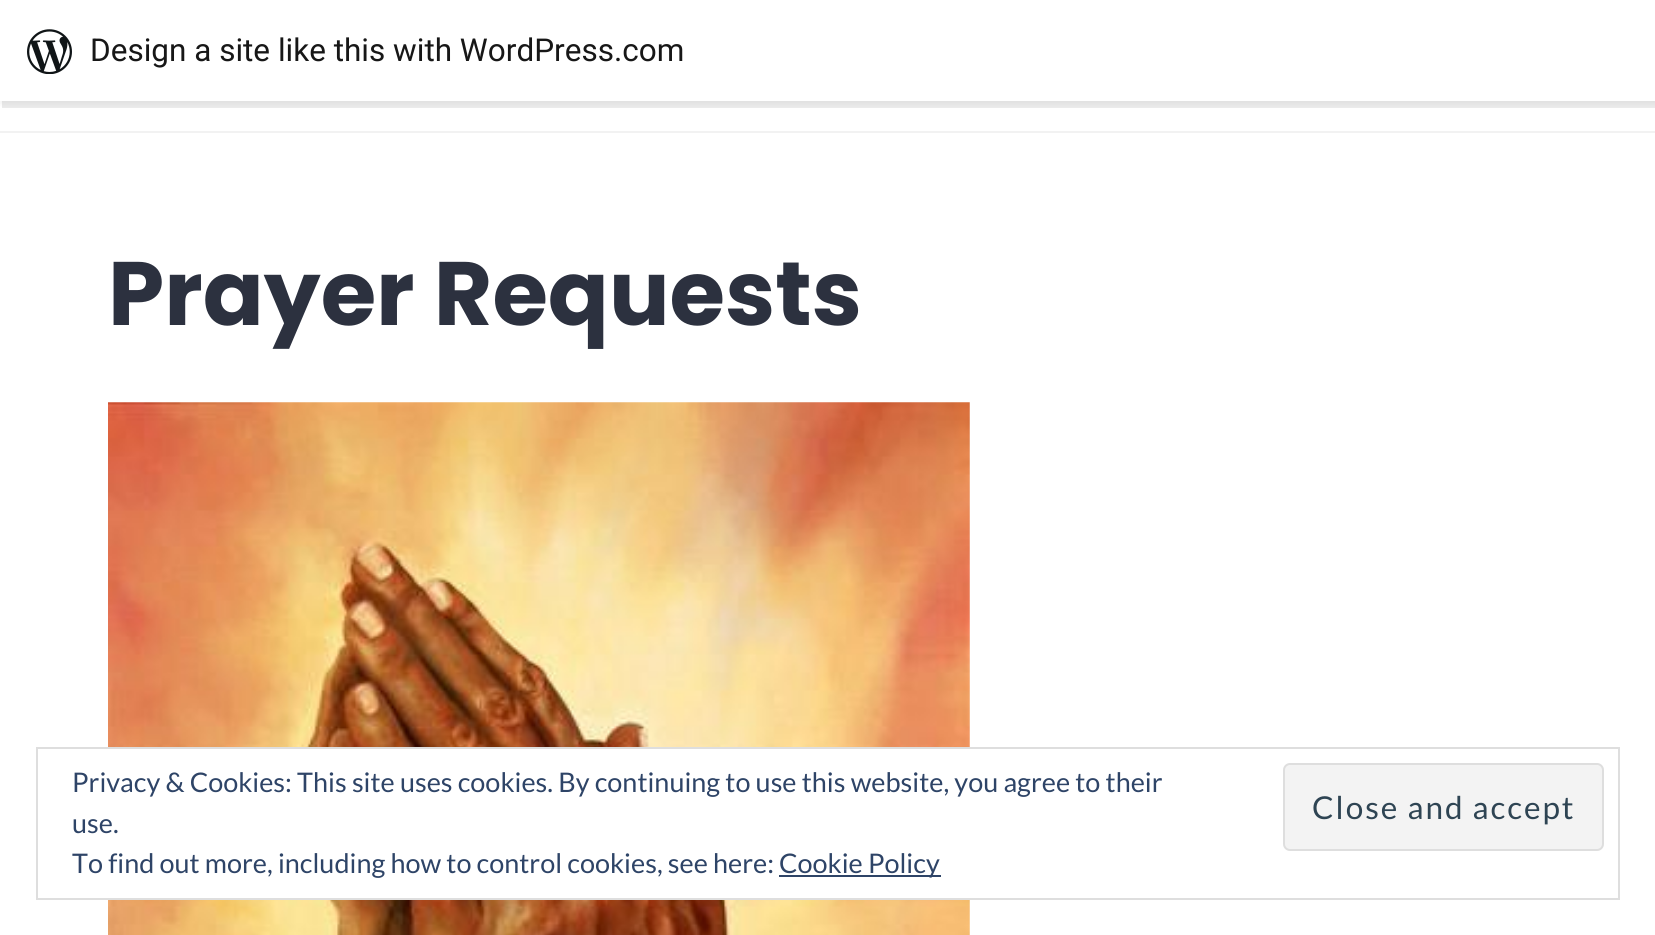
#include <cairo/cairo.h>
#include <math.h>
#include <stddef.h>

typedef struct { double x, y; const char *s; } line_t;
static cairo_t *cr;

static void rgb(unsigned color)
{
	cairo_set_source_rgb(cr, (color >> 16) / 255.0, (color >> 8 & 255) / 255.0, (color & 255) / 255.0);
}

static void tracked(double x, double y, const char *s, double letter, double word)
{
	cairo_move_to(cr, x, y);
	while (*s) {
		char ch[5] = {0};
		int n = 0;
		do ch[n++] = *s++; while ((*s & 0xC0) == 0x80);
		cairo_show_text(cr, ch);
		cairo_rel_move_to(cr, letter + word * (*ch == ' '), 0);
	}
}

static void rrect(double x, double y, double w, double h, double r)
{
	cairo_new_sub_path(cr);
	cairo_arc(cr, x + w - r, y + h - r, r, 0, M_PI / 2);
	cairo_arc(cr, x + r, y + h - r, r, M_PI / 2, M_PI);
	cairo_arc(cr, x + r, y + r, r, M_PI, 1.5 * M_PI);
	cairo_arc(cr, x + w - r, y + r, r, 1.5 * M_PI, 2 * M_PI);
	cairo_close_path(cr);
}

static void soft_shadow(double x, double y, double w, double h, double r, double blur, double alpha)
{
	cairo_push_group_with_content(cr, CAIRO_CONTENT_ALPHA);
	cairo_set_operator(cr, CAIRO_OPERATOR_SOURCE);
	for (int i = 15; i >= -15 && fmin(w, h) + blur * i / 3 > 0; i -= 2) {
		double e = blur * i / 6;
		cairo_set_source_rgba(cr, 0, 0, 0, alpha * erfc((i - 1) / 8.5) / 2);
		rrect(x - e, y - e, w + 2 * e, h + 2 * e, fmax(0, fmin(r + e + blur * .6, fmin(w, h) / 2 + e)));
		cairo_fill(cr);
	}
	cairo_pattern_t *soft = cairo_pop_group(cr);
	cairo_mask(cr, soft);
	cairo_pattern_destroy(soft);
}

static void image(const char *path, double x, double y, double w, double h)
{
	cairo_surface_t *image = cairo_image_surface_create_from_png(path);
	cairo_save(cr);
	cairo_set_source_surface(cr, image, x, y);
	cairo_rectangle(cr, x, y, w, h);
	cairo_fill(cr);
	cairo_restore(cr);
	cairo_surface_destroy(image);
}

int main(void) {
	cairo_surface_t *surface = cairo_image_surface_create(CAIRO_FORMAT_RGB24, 1655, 935);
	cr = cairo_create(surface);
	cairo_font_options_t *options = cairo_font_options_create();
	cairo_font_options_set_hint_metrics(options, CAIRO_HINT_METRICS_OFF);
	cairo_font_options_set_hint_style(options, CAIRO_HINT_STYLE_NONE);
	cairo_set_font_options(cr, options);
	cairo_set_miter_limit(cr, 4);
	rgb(0xffffff);
	cairo_paint(cr);
	rgb(0x000000);
	soft_shadow(0, 2, 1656, 102, 0, 2, 0.05);
	cairo_set_source_rgba(cr, 0, 0, 0, 0.08);
	cairo_new_path(cr);
	cairo_move_to(cr, 2, 101);
	cairo_line_to(cr, 2, 108);
	cairo_line_to(cr, 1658, 108);
	cairo_line_to(cr, 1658, 7);
	cairo_line_to(cr, 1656, 7);
	cairo_line_to(cr, 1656, 101);
	cairo_close_path(cr);
	cairo_fill(cr);
	rgb(0xffffff);
	cairo_rectangle(cr, 0, 0, 1655, 101);
	cairo_fill(cr);
	image("img/1.png", 27, 29, 45, 45);
	rgb(0xf2f2f2);
	cairo_rectangle(cr, 0, 131, 1655, 2);
	cairo_fill(cr);
	image("img/2.png", 108, 402, 862, 533);
	rgb(0xffffff);
	cairo_rectangle(cr, 108, 749, 862, 149);
	cairo_fill(cr);
	cairo_rectangle(cr, 37, 748, 1582, 151);
	rgb(0xdedede);
	cairo_stroke(cr);
	rgb(0xf3f3f3);
	rrect(1284, 764, 319, 86, 6);
	cairo_fill_preserve(cr);
	rgb(0xdedede);
	cairo_stroke(cr);
	rgb(0x2e4467);
	cairo_rectangle(cr, 779, 875, 162, 2);
	cairo_fill(cr);
	cairo_select_font_face(cr, "Roboto", CAIRO_FONT_SLANT_NORMAL, CAIRO_FONT_WEIGHT_NORMAL);
	cairo_set_font_size(cr, 31.5);
	rgb(0x171717);
	cairo_move_to(cr, 90, 61);
	cairo_show_text(cr, "Design a site like this with WordPress.com");
	cairo_select_font_face(cr, "Poppins", CAIRO_FONT_SLANT_NORMAL, CAIRO_FONT_WEIGHT_BOLD);
	cairo_set_font_size(cr, 90);
	rgb(0x2c313f);
	cairo_move_to(cr, 108, 325);
	cairo_show_text(cr, "Prayer Requests");
	cairo_select_font_face(cr, "Lato", CAIRO_FONT_SLANT_NORMAL, CAIRO_FONT_WEIGHT_NORMAL);
	cairo_set_font_size(cr, 27);
	rgb(0x2e4467);
	cairo_move_to(cr, 72, 792);
	cairo_show_text(cr, "Privacy & Cookies: This site uses cookies. By continuing to use this website, you agree to their");
	cairo_set_font_size(cr, 31.5);
	rgb(0x2e4453);
	tracked(1312, 819, "Close and accept", 2, 0);
	cairo_set_font_size(cr, 27);
	rgb(0x2e4467);
	{
		static const line_t items[] = {
			{72, 833, "use."},
			{72, 873, "To find out more, including how to control cookies, see here:"},
			{779, 873, "Cookie Policy"},
		};
		for (size_t i = 0; i < sizeof items / sizeof *items; i++) {
			cairo_move_to(cr, items[i].x, items[i].y);
			cairo_show_text(cr, items[i].s);
		}
	}
	cairo_surface_write_to_png(surface, "page.png");
	cairo_font_options_destroy(options);
	cairo_destroy(cr);
	cairo_surface_destroy(surface);
	return 0;
}
